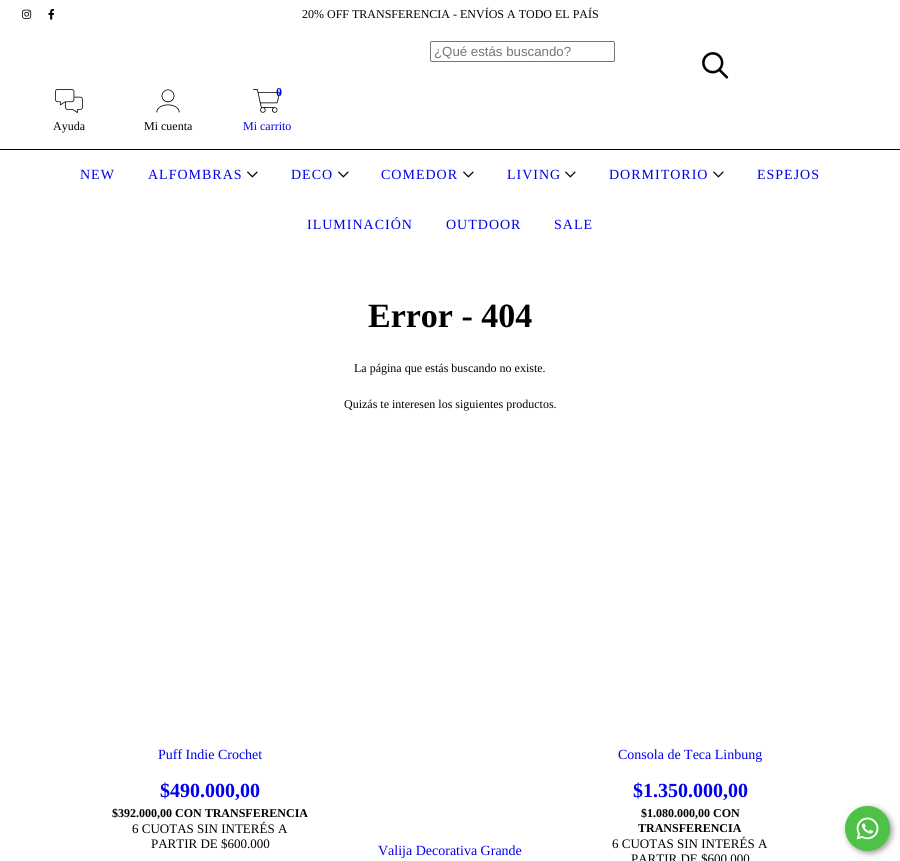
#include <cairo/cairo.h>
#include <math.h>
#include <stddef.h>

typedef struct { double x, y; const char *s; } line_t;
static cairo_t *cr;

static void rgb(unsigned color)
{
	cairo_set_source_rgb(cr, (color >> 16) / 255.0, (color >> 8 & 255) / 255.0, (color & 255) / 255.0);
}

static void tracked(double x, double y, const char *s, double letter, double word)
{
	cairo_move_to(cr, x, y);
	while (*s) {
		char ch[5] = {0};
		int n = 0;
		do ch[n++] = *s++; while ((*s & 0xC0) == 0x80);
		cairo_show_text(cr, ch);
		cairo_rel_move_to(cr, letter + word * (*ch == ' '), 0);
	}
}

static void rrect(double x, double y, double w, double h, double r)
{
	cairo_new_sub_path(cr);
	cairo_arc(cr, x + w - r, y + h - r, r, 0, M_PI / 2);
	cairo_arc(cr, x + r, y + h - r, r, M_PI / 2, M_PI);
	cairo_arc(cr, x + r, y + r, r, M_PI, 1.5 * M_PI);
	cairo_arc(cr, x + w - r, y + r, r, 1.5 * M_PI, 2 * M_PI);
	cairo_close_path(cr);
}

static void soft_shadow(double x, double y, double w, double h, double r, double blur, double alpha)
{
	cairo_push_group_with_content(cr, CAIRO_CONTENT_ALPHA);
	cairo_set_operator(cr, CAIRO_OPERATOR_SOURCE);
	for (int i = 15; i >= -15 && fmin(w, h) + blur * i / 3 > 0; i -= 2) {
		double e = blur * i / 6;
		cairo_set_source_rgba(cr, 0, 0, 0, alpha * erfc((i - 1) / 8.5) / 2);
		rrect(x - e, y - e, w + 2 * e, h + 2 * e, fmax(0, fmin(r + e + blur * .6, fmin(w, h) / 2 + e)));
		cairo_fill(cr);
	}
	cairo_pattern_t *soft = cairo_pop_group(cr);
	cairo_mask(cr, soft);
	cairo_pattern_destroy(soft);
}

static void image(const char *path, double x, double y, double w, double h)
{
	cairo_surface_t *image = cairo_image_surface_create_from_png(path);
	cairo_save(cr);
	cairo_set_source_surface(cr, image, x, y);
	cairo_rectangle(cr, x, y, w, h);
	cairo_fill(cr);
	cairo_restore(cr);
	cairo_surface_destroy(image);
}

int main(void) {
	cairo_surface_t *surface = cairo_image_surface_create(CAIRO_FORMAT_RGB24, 900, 861);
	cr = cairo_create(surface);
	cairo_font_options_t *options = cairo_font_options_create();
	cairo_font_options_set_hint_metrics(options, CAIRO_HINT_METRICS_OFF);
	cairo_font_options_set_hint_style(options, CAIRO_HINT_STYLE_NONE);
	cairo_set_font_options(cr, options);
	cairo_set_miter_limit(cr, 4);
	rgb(0xffffff);
	cairo_paint(cr);
	image("img/1.png", 22, 9, 10, 10);
	image("img/2.png", 48, 9, 7, 11);
	rrect(430.5, 41.5, 184, 20, 1.5);
	rgb(0x767676);
	cairo_set_line_width(cr, 1);
	cairo_stroke(cr);
	image("img/3.png", 702, 52, 27, 27);
	image("img/4.png", 55, 89, 28, 24);
	image("img/5.png", 156, 89, 24, 24);
	image("img/6.png", 253, 89, 27, 24);
	rgb(0x000000);
	cairo_rectangle(cr, 0, 149, 900, 1);
	cairo_fill(cr);
	image("img/7.png", 247, 171, 11, 7);
	image("img/7.png", 338, 171, 11, 7);
	image("img/7.png", 463, 171, 11, 7);
	image("img/7.png", 565, 171, 11, 7);
	image("img/7.png", 713, 171, 11, 7);
	rgb(0x000000);
	soft_shadow(847, 808, 45, 45, 22.5, 3, 0.4);
	rgb(0x4dc247);
	cairo_arc(cr, 867.5, 828.5, 22.5, 0, 2 * M_PI);
	cairo_fill(cr);
	image("img/8.png", 856, 817, 23, 23);
	cairo_select_font_face(cr, "Liberation Serif", CAIRO_FONT_SLANT_NORMAL, CAIRO_FONT_WEIGHT_NORMAL);
	cairo_set_font_size(cr, 12);
	rgb(0x000000);
	cairo_move_to(cr, 302, 18);
	cairo_show_text(cr, "20% OFF TRANSFERENCIA - ENVÍOS A TODO EL PAÍS");
	cairo_select_font_face(cr, "Liberation Sans", CAIRO_FONT_SLANT_NORMAL, CAIRO_FONT_WEIGHT_NORMAL);
	cairo_set_font_size(cr, 13.25);
	rgb(0x757575);
	cairo_move_to(cr, 434, 56);
	cairo_show_text(cr, "¿Qué estás buscando?");
	cairo_select_font_face(cr, "Liberation Serif", CAIRO_FONT_SLANT_NORMAL, CAIRO_FONT_WEIGHT_NORMAL);
	cairo_set_font_size(cr, 12);
	rgb(0x000000);
	cairo_move_to(cr, 53, 130);
	cairo_show_text(cr, "Ayuda");
	cairo_move_to(cr, 144, 130);
	cairo_show_text(cr, "Mi cuenta");
	cairo_select_font_face(cr, "Liberation Serif", CAIRO_FONT_SLANT_NORMAL, CAIRO_FONT_WEIGHT_BOLD);
	rgb(0x0000ee);
	cairo_move_to(cr, 276, 96);
	cairo_show_text(cr, "0");
	cairo_select_font_face(cr, "Liberation Serif", CAIRO_FONT_SLANT_NORMAL, CAIRO_FONT_WEIGHT_NORMAL);
	cairo_move_to(cr, 243, 130);
	cairo_show_text(cr, "Mi carrito");
	cairo_set_font_size(cr, 14);
	{
		static const line_t items[] = {
			{80, 179, "NEW"},
			{148, 179, "ALFOMBRAS"},
			{291, 179, "DECO"},
			{381, 179, "COMEDOR"},
			{507, 179, "LIVING"},
			{609, 179, "DORMITORIO"},
			{757, 179, "ESPEJOS"},
			{307, 229, "ILUMINACIÓN"},
			{446, 229, "OUTDOOR"},
			{554, 229, "SALE"},
		};
		for (size_t i = 0; i < sizeof items / sizeof *items; i++) {
			tracked(items[i].x, items[i].y, items[i].s, 1, 0);
		}
	}
	cairo_select_font_face(cr, "Liberation Serif", CAIRO_FONT_SLANT_NORMAL, CAIRO_FONT_WEIGHT_BOLD);
	cairo_set_font_size(cr, 34);
	rgb(0x000000);
	cairo_move_to(cr, 368, 327);
	cairo_show_text(cr, "Error - 404");
	cairo_select_font_face(cr, "Liberation Serif", CAIRO_FONT_SLANT_NORMAL, CAIRO_FONT_WEIGHT_NORMAL);
	cairo_set_font_size(cr, 12);
	cairo_move_to(cr, 354, 372);
	cairo_show_text(cr, "La página que estás buscando no existe.");
	cairo_move_to(cr, 344, 408);
	cairo_show_text(cr, "Quizás te interesen los siguientes productos.");
	cairo_set_font_size(cr, 14);
	rgb(0x0000ee);
	cairo_move_to(cr, 158, 759);
	cairo_show_text(cr, "Puff Indie Crochet");
	cairo_select_font_face(cr, "Liberation Serif", CAIRO_FONT_SLANT_NORMAL, CAIRO_FONT_WEIGHT_BOLD);
	cairo_set_font_size(cr, 20);
	cairo_move_to(cr, 160, 797);
	cairo_show_text(cr, "$490.000,00");
	cairo_set_font_size(cr, 12);
	rgb(0x000000);
	cairo_move_to(cr, 112, 817);
	cairo_show_text(cr, "$392.000,00 CON TRANSFERENCIA");
	cairo_select_font_face(cr, "Liberation Serif", CAIRO_FONT_SLANT_NORMAL, CAIRO_FONT_WEIGHT_NORMAL);
	cairo_set_font_size(cr, 13);
	cairo_move_to(cr, 132, 833);
	cairo_show_text(cr, "6 CUOTAS SIN INTERÉS A");
	cairo_move_to(cr, 151, 848);
	cairo_show_text(cr, "PARTIR DE $600.000");
	cairo_set_font_size(cr, 14);
	rgb(0x0000ee);
	cairo_move_to(cr, 378, 855);
	cairo_show_text(cr, "Valija Decorativa Grande");
	cairo_move_to(cr, 618, 759);
	cairo_show_text(cr, "Consola de Teca Linbung");
	cairo_select_font_face(cr, "Liberation Serif", CAIRO_FONT_SLANT_NORMAL, CAIRO_FONT_WEIGHT_BOLD);
	cairo_set_font_size(cr, 20);
	cairo_move_to(cr, 633, 797);
	cairo_show_text(cr, "$1.350.000,00");
	cairo_set_font_size(cr, 12);
	rgb(0x000000);
	cairo_move_to(cr, 641, 817);
	cairo_show_text(cr, "$1.080.000,00 CON");
	cairo_move_to(cr, 638, 832);
	cairo_show_text(cr, "TRANSFERENCIA");
	cairo_select_font_face(cr, "Liberation Serif", CAIRO_FONT_SLANT_NORMAL, CAIRO_FONT_WEIGHT_NORMAL);
	cairo_set_font_size(cr, 13);
	cairo_move_to(cr, 612, 848);
	cairo_show_text(cr, "6 CUOTAS SIN INTERÉS A");
	cairo_move_to(cr, 631, 863);
	cairo_show_text(cr, "PARTIR DE $600.000");
	cairo_surface_write_to_png(surface, "page.png");
	cairo_font_options_destroy(options);
	cairo_destroy(cr);
	cairo_surface_destroy(surface);
	return 0;
}
